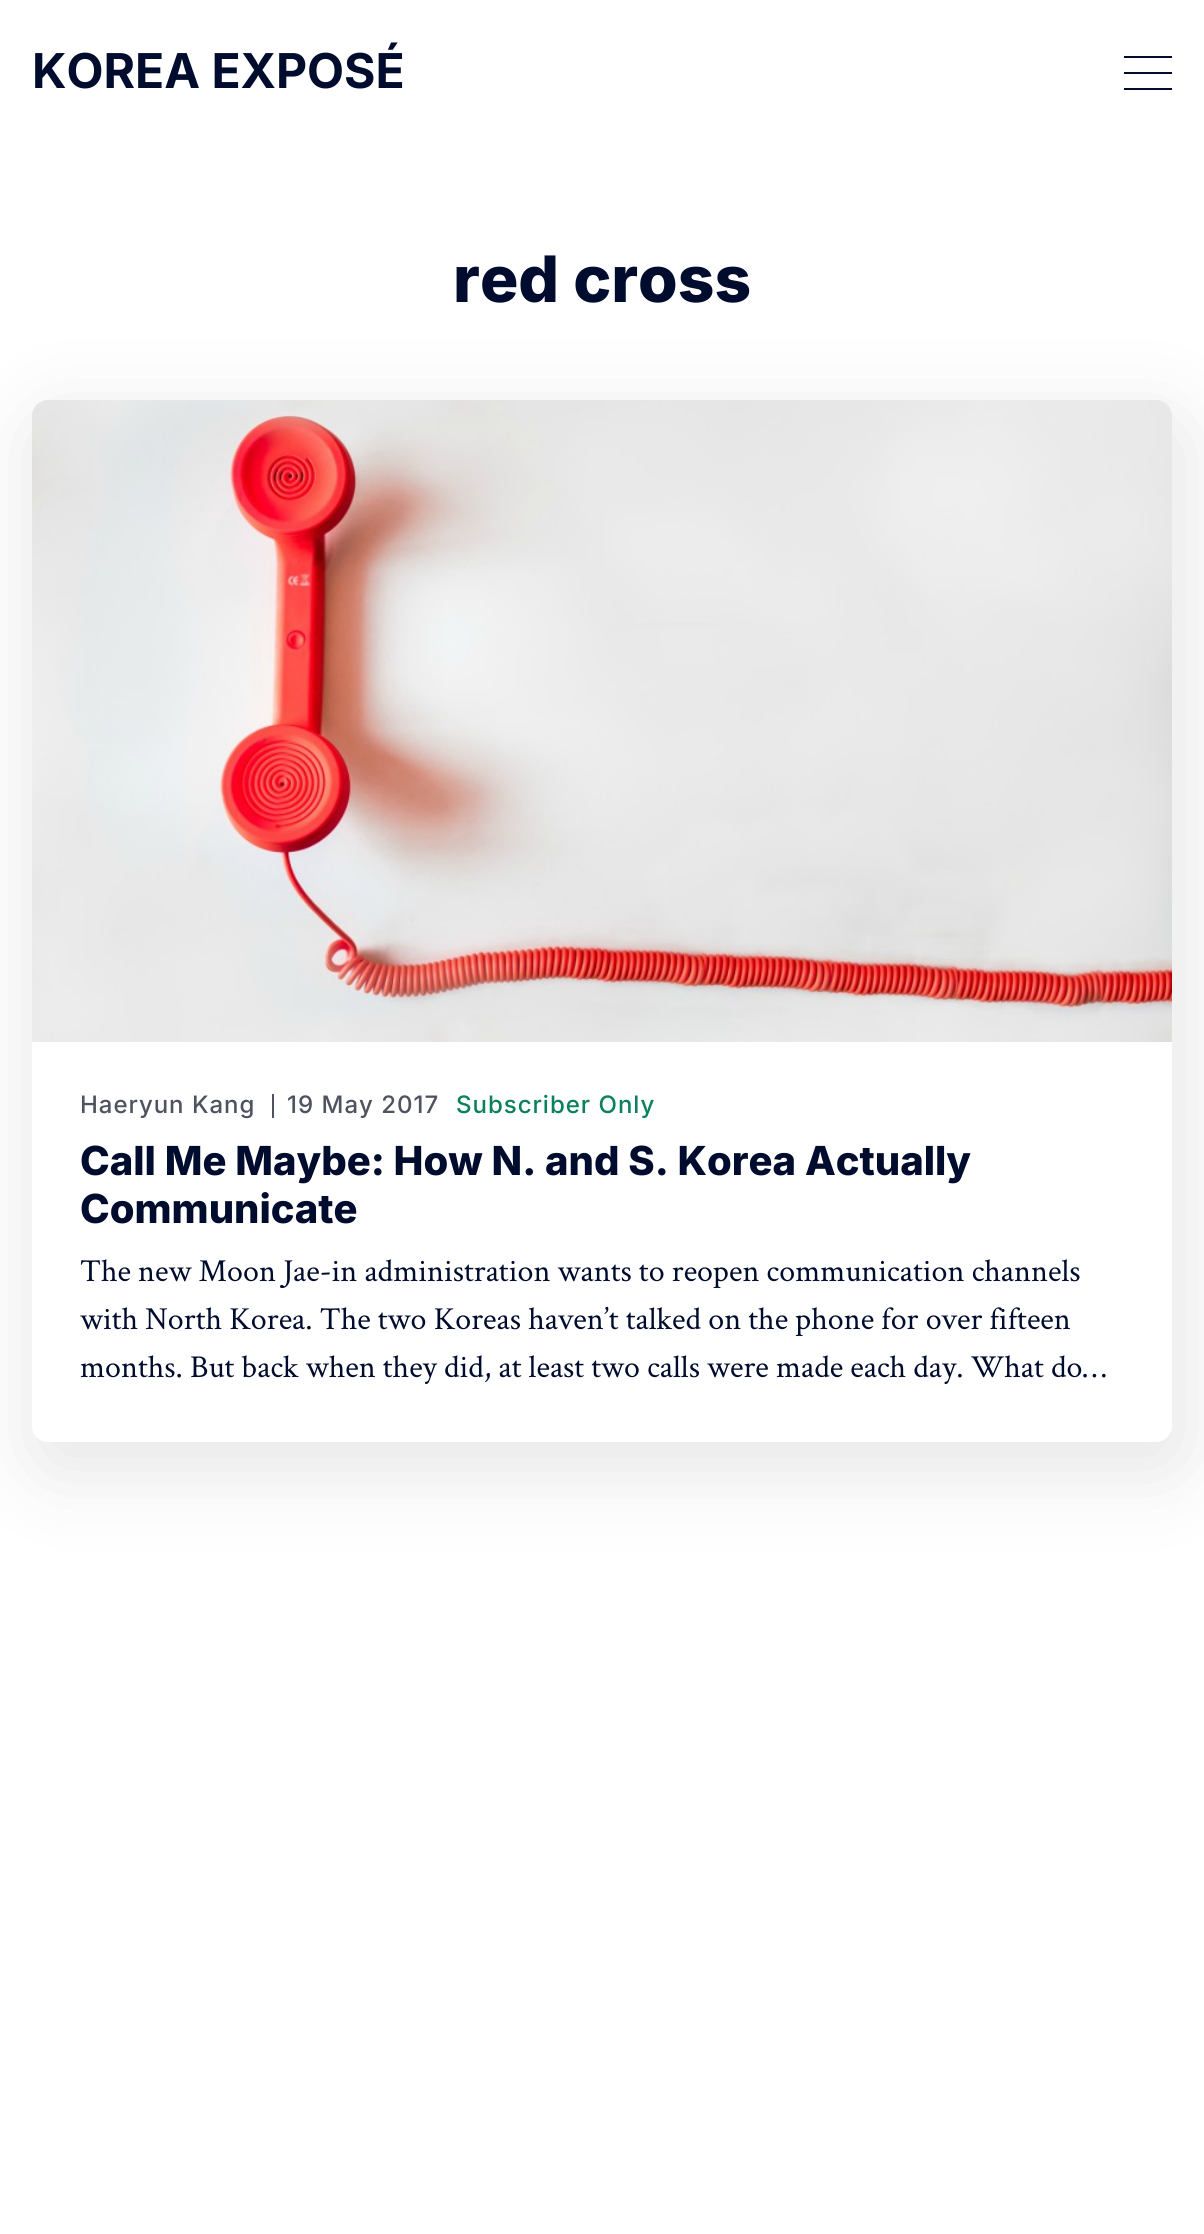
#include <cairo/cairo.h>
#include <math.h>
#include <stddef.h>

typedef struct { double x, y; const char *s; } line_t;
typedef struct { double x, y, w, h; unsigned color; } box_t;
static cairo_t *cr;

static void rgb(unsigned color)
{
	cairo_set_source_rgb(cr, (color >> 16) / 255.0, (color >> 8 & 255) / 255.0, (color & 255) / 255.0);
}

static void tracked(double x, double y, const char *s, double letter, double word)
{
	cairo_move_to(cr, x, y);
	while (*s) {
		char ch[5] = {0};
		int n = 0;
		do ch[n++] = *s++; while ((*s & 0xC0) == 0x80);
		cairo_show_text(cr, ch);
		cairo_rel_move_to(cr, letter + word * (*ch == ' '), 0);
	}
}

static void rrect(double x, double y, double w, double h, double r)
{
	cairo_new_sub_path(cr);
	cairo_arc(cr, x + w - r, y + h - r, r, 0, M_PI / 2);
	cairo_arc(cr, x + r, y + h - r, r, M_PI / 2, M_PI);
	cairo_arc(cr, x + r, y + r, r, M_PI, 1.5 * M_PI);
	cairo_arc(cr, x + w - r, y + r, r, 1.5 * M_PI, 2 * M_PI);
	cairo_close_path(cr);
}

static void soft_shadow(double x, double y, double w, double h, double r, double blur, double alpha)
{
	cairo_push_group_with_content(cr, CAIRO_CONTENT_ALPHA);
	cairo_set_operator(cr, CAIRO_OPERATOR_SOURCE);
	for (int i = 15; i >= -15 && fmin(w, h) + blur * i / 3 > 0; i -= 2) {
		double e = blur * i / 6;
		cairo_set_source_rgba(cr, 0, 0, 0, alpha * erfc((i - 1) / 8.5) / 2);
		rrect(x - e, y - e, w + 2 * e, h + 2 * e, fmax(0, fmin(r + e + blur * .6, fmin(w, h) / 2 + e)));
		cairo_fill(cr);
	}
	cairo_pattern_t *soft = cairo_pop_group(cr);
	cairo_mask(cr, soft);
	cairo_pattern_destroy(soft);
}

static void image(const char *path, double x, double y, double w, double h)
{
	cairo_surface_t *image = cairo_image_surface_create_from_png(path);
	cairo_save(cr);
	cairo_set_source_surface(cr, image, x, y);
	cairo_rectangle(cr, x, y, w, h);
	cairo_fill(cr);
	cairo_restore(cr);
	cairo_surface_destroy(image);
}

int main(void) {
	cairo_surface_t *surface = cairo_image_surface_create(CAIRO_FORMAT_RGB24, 1204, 2234);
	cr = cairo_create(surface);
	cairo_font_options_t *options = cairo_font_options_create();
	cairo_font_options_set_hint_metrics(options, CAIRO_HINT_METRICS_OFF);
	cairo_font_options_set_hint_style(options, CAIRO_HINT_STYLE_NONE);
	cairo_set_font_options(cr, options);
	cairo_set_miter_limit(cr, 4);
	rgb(0xffffff);
	cairo_paint(cr);
	{
		static const box_t items[] = {
			{1124, 56, 48, 2, 0x000c2d},
			{1124, 72, 48, 2, 0x000c2d},
			{1124, 88, 48, 2, 0x000c2d},
		};
		for (size_t i = 0; i < sizeof items / sizeof *items; i++) {
			rgb(items[i].color);
			cairo_rectangle(cr, items[i].x, items[i].y, items[i].w, items[i].h);
			cairo_fill(cr);
		}
	}
	rgb(0x000000);
	soft_shadow(28, 412, 1164, 1066, 28, 40, 0.09);
	rgb(0xeef1f0);
	cairo_new_path(cr);
	cairo_move_to(cr, 48, 400);
	cairo_line_to(cr, 1156, 400);
	cairo_curve_to(cr, 1165, 400, 1172, 407, 1172, 416);
	cairo_line_to(cr, 1172, 1042);
	cairo_line_to(cr, 32, 1042);
	cairo_line_to(cr, 32, 416);
	cairo_curve_to(cr, 32, 407, 39, 400, 48, 400);
	cairo_close_path(cr);
	cairo_fill(cr);
	image("img/1.png", 32, 400, 1140, 642);
	rgb(0xffffff);
	cairo_new_path(cr);
	cairo_move_to(cr, 32, 1042);
	cairo_line_to(cr, 1172, 1042);
	cairo_line_to(cr, 1172, 1426);
	cairo_curve_to(cr, 1172, 1435, 1165, 1442, 1156, 1442);
	cairo_line_to(cr, 48, 1442);
	cairo_curve_to(cr, 39, 1442, 32, 1435, 32, 1426);
	cairo_close_path(cr);
	cairo_fill(cr);
	rgb(0x4f525f);
	cairo_rectangle(cr, 272, 1094, 2, 24);
	cairo_fill(cr);
	cairo_select_font_face(cr, "Inter", CAIRO_FONT_SLANT_NORMAL, CAIRO_FONT_WEIGHT_BOLD);
	cairo_set_font_size(cr, 48);
	rgb(0x000c2d);
	cairo_move_to(cr, 32, 88);
	cairo_show_text(cr, "KOREA EXPOSÉ");
	cairo_select_font_face(cr, "Inter ExtraBold", CAIRO_FONT_SLANT_NORMAL, CAIRO_FONT_WEIGHT_NORMAL);
	cairo_set_font_size(cr, 64);
	cairo_move_to(cr, 453, 302);
	cairo_show_text(cr, "red cross");
	cairo_select_font_face(cr, "Inter Medium", CAIRO_FONT_SLANT_NORMAL, CAIRO_FONT_WEIGHT_NORMAL);
	cairo_set_font_size(cr, 24);
	rgb(0x4f525f);
	tracked(80, 1113, "Haeryun Kang", 1, 0);
	tracked(287, 1113, "19 May 2017", 1, 0);
	rgb(0x09815c);
	tracked(456, 1113, "Subscriber Only", 1, 0);
	cairo_select_font_face(cr, "Inter ExtraBold", CAIRO_FONT_SLANT_NORMAL, CAIRO_FONT_WEIGHT_NORMAL);
	cairo_set_font_size(cr, 40);
	rgb(0x000c2d);
	cairo_move_to(cr, 80, 1175);
	cairo_show_text(cr, "Call Me Maybe: How N. and S. Korea Actually");
	cairo_move_to(cr, 80, 1223);
	cairo_show_text(cr, "Communicate");
	cairo_select_font_face(cr, "Crimson Text", CAIRO_FONT_SLANT_NORMAL, CAIRO_FONT_WEIGHT_NORMAL);
	cairo_set_font_size(cr, 32);
	{
		static const line_t items[] = {
			{80, 1281, "The new Moon Jae-in administration wants to reopen communication channels"},
			{80, 1329, "with North Korea. The two Koreas haven’t talked on the phone for over fifteen"},
			{80, 1377, "months. But back when they did, at least two calls were made each day. What do…"},
		};
		for (size_t i = 0; i < sizeof items / sizeof *items; i++) {
			cairo_move_to(cr, items[i].x, items[i].y);
			cairo_show_text(cr, items[i].s);
		}
	}
	cairo_surface_write_to_png(surface, "page.png");
	cairo_font_options_destroy(options);
	cairo_destroy(cr);
	cairo_surface_destroy(surface);
	return 0;
}
